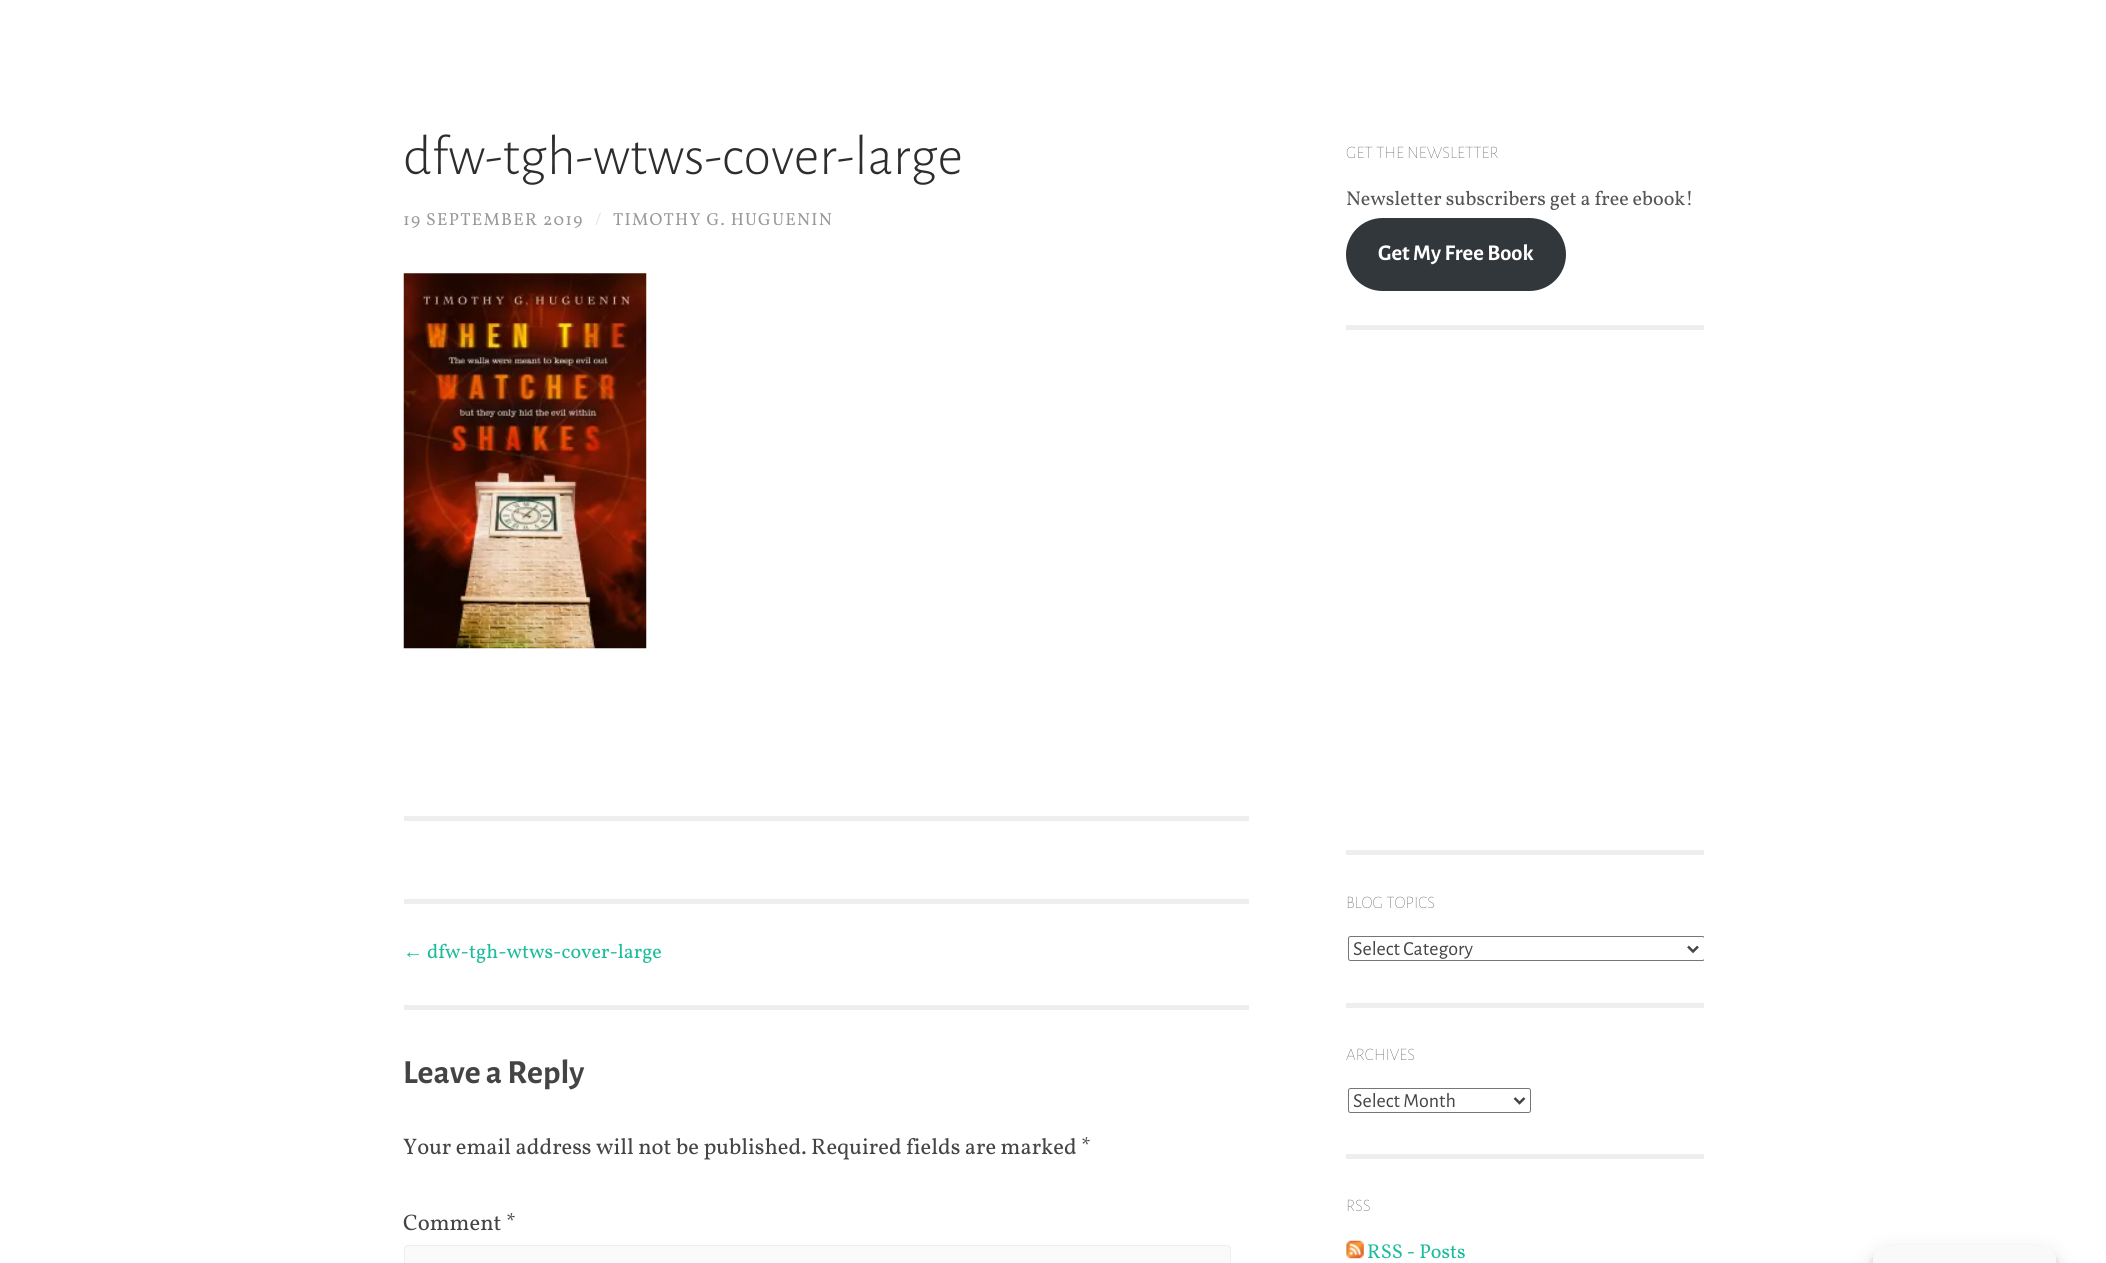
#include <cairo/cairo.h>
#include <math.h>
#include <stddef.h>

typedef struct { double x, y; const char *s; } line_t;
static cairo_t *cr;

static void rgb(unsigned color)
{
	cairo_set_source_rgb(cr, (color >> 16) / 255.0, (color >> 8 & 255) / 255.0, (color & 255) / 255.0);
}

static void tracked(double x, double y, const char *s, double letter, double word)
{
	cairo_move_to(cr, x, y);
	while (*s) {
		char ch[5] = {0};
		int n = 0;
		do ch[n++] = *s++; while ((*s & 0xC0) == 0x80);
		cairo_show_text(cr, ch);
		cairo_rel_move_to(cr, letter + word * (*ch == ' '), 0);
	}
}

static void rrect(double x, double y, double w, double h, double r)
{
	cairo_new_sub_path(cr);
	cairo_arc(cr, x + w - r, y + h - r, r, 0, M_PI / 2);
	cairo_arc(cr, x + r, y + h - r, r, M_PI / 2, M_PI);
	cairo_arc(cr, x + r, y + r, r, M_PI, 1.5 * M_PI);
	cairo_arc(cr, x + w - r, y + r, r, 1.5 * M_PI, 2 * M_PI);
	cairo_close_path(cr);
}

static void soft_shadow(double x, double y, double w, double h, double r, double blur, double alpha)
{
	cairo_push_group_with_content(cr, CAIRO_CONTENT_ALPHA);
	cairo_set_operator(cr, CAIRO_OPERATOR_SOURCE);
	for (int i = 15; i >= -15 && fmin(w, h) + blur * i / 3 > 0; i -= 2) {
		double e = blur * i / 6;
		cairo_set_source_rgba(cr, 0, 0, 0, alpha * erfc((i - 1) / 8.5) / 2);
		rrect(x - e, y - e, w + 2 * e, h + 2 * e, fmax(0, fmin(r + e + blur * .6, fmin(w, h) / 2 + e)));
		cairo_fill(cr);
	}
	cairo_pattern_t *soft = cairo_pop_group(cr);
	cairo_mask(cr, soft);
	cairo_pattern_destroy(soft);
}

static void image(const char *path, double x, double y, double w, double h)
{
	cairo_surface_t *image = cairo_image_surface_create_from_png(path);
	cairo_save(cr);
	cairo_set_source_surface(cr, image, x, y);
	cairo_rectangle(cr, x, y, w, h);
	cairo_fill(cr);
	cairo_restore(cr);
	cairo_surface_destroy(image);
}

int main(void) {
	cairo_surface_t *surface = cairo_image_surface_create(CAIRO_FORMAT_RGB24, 2106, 1263);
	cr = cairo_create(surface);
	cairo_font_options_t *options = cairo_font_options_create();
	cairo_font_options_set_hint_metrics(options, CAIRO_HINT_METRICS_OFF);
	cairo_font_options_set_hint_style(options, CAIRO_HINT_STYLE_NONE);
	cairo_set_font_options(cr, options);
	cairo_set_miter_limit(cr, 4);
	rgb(0xffffff);
	cairo_paint(cr);
	rgb(0xeeeeee);
	cairo_rectangle(cr, 404, 816, 845, 5);
	cairo_fill(cr);
	image("img/1.png", 403, 273, 244, 376);
	cairo_rectangle(cr, 404, 899, 845, 5);
	cairo_fill(cr);
	cairo_rectangle(cr, 404, 1005, 845, 5);
	cairo_fill(cr);
	rgb(0xfafafa);
	rrect(404.5, 1245.5, 826, 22, 3.5);
	cairo_fill_preserve(cr);
	rgb(0xeeeeee);
	cairo_set_line_width(cr, 1);
	cairo_stroke(cr);
	cairo_rectangle(cr, 1346, 325, 358, 5);
	cairo_fill(cr);
	rgb(0x32373c);
	rrect(1346, 218, 220, 73, 36.5);
	cairo_fill(cr);
	rgb(0xeeeeee);
	cairo_rectangle(cr, 1346, 850, 358, 5);
	cairo_fill(cr);
	cairo_rectangle(cr, 1346, 1003, 358, 5);
	cairo_fill(cr);
	cairo_save(cr);
	cairo_rectangle(cr, 1346, 124, 358, 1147);
	cairo_clip(cr);
	rrect(1348.5, 936.5, 356, 24, 2);
	rgb(0x767676);
	cairo_stroke(cr);
	cairo_restore(cr);
	cairo_new_path(cr);
	cairo_move_to(cr, 1688, 946.5);
	cairo_line_to(cr, 1693, 951.5);
	cairo_line_to(cr, 1698, 946.5);
	rgb(0x444444);
	cairo_set_line_width(cr, 2.5);
	cairo_stroke(cr);
	rgb(0xeeeeee);
	cairo_rectangle(cr, 1346, 1154, 358, 5);
	cairo_fill(cr);
	rrect(1348.5, 1088.5, 182, 24, 2);
	rgb(0x767676);
	cairo_set_line_width(cr, 1);
	cairo_stroke(cr);
	cairo_new_path(cr);
	cairo_move_to(cr, 1514.5, 1098);
	cairo_line_to(cr, 1519.5, 1103);
	cairo_line_to(cr, 1524.5, 1098);
	rgb(0x444444);
	cairo_set_line_width(cr, 2.5);
	cairo_stroke(cr);
	image("img/2.png", 1346, 1240, 18, 19);
	rgb(0x000000);
	soft_shadow(1873, 1253, 183, 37, 15, 4, 0.23);
	soft_shadow(1873, 1258, 183, 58, 15, 12.5, 0.19);
	rgb(0xf9f9f9);
	cairo_new_path(cr);
	cairo_move_to(cr, 1888, 1245);
	cairo_line_to(cr, 2041, 1245);
	cairo_curve_to(cr, 2049.5, 1245, 2056, 1251.5, 2056, 1260);
	cairo_line_to(cr, 2056, 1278);
	cairo_line_to(cr, 1873, 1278);
	cairo_line_to(cr, 1873, 1260);
	cairo_curve_to(cr, 1873, 1251.5, 1879.5, 1245, 1888, 1245);
	cairo_close_path(cr);
	cairo_fill(cr);
	cairo_select_font_face(cr, "Alegreya Sans Light", CAIRO_FONT_SLANT_NORMAL, CAIRO_FONT_WEIGHT_NORMAL);
	cairo_set_font_size(cr, 56.25);
	rgb(0x2d2d2d);
	cairo_move_to(cr, 403, 174);
	cairo_show_text(cr, "dfw-tgh-wtws-cover-large");
	cairo_select_font_face(cr, "Vollkorn", CAIRO_FONT_SLANT_NORMAL, CAIRO_FONT_WEIGHT_NORMAL);
	cairo_set_font_size(cr, 17.5);
	rgb(0x999999);
	tracked(403, 225, "19 SEPTEMBER 2019", 1.25, 0);
	rgb(0xdddddd);
	tracked(595, 225, "/", 1.25, 0);
	rgb(0x999999);
	tracked(613, 225, "TIMOTHY G. HUGUENIN", 1.25, 0);
	cairo_select_font_face(cr, "Liberation Serif", CAIRO_FONT_SLANT_NORMAL, CAIRO_FONT_WEIGHT_NORMAL);
	cairo_set_font_size(cr, 20);
	rgb(0x1abc9c);
	cairo_move_to(cr, 403, 958);
	cairo_show_text(cr, "←");
	cairo_select_font_face(cr, "Vollkorn", CAIRO_FONT_SLANT_NORMAL, CAIRO_FONT_WEIGHT_NORMAL);
	cairo_move_to(cr, 427, 958);
	cairo_show_text(cr, "dfw-tgh-wtws-cover-large");
	cairo_select_font_face(cr, "Alegreya Sans", CAIRO_FONT_SLANT_NORMAL, CAIRO_FONT_WEIGHT_BOLD);
	cairo_set_font_size(cr, 33.75);
	rgb(0x444444);
	cairo_move_to(cr, 403, 1083);
	cairo_show_text(cr, "Leave a Reply");
	cairo_select_font_face(cr, "Vollkorn", CAIRO_FONT_SLANT_NORMAL, CAIRO_FONT_WEIGHT_NORMAL);
	cairo_set_font_size(cr, 22.5);
	{
		static const line_t items[] = {
			{403, 1154, "Your email address will not be published. Required fields are marked"},
			{1081, 1154, "*"},
			{403, 1230, "Comment *"},
		};
		for (size_t i = 0; i < sizeof items / sizeof *items; i++) {
			cairo_move_to(cr, items[i].x, items[i].y);
			cairo_show_text(cr, items[i].s);
		}
	}
	cairo_select_font_face(cr, "Alegreya Sans Thin", CAIRO_FONT_SLANT_NORMAL, CAIRO_FONT_WEIGHT_NORMAL);
	cairo_set_font_size(cr, 17.5);
	cairo_move_to(cr, 1346, 158);
	cairo_show_text(cr, "GET THE NEWSLETTER");
	cairo_select_font_face(cr, "Vollkorn", CAIRO_FONT_SLANT_NORMAL, CAIRO_FONT_WEIGHT_NORMAL);
	cairo_set_font_size(cr, 20);
	rgb(0x555555);
	cairo_move_to(cr, 1346, 205);
	cairo_show_text(cr, "Newsletter subscribers get a free ebook!");
	cairo_select_font_face(cr, "Alegreya Sans", CAIRO_FONT_SLANT_NORMAL, CAIRO_FONT_WEIGHT_BOLD);
	cairo_set_font_size(cr, 22.5);
	rgb(0xffffff);
	cairo_move_to(cr, 1378, 260);
	cairo_show_text(cr, "Get My Free Book");
	cairo_select_font_face(cr, "Alegreya Sans Thin", CAIRO_FONT_SLANT_NORMAL, CAIRO_FONT_WEIGHT_NORMAL);
	cairo_set_font_size(cr, 17.5);
	rgb(0x444444);
	cairo_move_to(cr, 1346, 908);
	cairo_show_text(cr, "BLOG TOPICS");
	cairo_select_font_face(cr, "Alegreya Sans", CAIRO_FONT_SLANT_NORMAL, CAIRO_FONT_WEIGHT_NORMAL);
	cairo_set_font_size(cr, 20);
	cairo_move_to(cr, 1353, 955);
	cairo_show_text(cr, "Select Category");
	cairo_select_font_face(cr, "Alegreya Sans Thin", CAIRO_FONT_SLANT_NORMAL, CAIRO_FONT_WEIGHT_NORMAL);
	cairo_set_font_size(cr, 17.5);
	cairo_move_to(cr, 1346, 1060);
	cairo_show_text(cr, "ARCHIVES");
	cairo_select_font_face(cr, "Alegreya Sans", CAIRO_FONT_SLANT_NORMAL, CAIRO_FONT_WEIGHT_NORMAL);
	cairo_set_font_size(cr, 20);
	cairo_move_to(cr, 1353, 1107);
	cairo_show_text(cr, "Select Month");
	cairo_select_font_face(cr, "Alegreya Sans Thin", CAIRO_FONT_SLANT_NORMAL, CAIRO_FONT_WEIGHT_NORMAL);
	cairo_set_font_size(cr, 17.5);
	cairo_move_to(cr, 1346, 1211);
	cairo_show_text(cr, "RSS");
	cairo_select_font_face(cr, "Vollkorn", CAIRO_FONT_SLANT_NORMAL, CAIRO_FONT_WEIGHT_NORMAL);
	cairo_set_font_size(cr, 20);
	rgb(0x1abc9c);
	cairo_move_to(cr, 1367, 1258);
	cairo_show_text(cr, "RSS - Posts");
	cairo_surface_write_to_png(surface, "page.png");
	cairo_font_options_destroy(options);
	cairo_destroy(cr);
	cairo_surface_destroy(surface);
	return 0;
}
